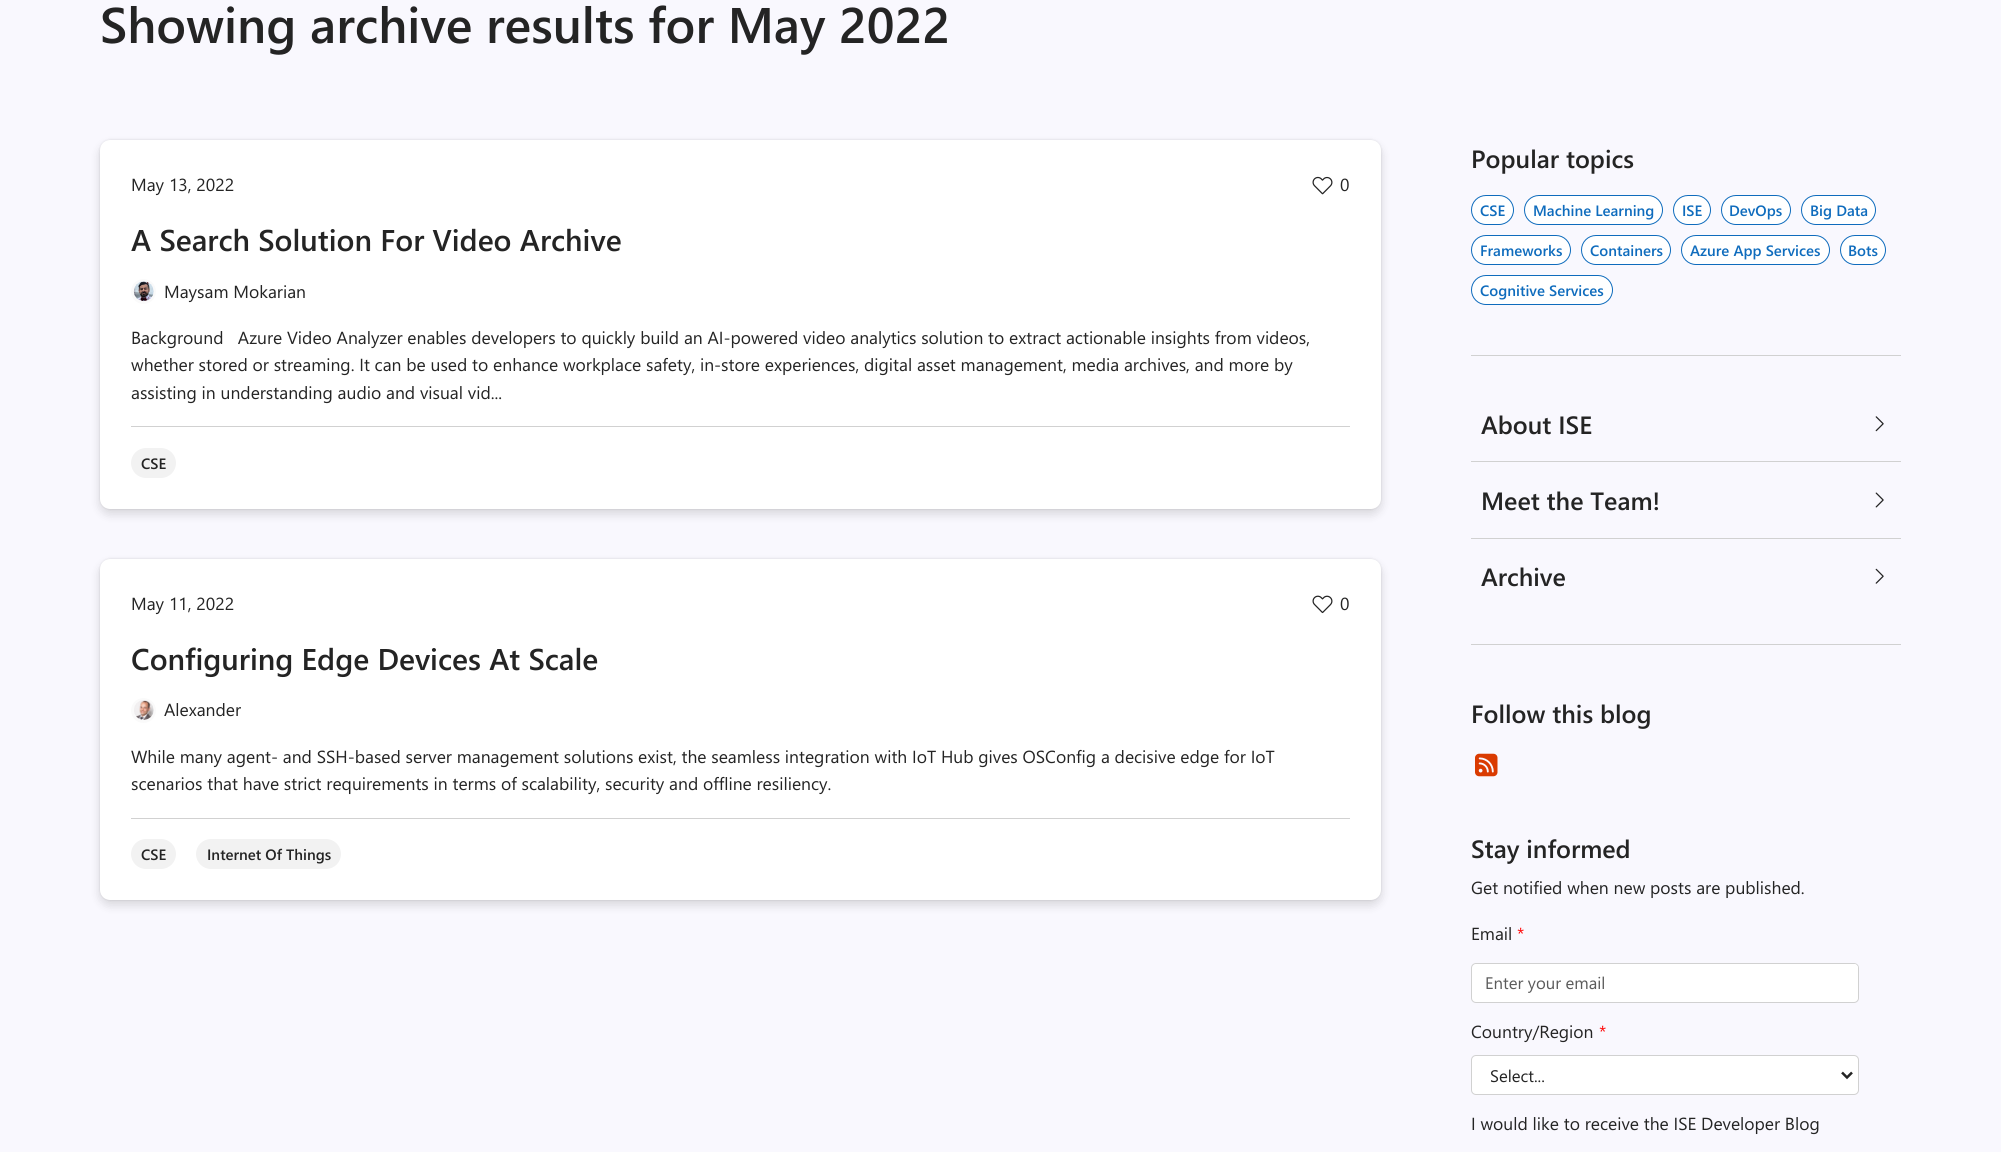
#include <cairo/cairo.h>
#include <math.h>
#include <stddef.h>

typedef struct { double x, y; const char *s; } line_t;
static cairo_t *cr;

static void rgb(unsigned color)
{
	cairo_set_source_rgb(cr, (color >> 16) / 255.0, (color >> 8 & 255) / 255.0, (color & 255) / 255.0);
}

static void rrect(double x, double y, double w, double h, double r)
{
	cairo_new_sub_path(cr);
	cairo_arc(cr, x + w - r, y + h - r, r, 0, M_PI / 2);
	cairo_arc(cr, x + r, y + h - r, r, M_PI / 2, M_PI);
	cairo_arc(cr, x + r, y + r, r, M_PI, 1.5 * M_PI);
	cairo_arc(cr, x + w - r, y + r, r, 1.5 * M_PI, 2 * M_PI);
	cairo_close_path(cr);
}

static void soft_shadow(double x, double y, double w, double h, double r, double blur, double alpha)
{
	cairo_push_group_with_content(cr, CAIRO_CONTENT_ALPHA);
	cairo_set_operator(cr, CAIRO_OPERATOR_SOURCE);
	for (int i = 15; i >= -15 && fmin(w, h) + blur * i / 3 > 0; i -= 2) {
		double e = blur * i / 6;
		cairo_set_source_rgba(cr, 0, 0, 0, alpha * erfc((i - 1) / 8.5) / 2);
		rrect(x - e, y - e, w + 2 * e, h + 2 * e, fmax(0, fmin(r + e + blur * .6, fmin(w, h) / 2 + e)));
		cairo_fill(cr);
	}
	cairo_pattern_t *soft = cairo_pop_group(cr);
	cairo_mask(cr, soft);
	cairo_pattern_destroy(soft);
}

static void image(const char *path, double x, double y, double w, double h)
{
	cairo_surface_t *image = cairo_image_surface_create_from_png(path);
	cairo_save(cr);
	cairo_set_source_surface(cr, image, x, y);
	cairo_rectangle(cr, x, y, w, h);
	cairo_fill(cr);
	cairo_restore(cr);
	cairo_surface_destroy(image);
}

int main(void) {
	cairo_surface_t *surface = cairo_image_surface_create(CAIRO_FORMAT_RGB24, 2001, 1152);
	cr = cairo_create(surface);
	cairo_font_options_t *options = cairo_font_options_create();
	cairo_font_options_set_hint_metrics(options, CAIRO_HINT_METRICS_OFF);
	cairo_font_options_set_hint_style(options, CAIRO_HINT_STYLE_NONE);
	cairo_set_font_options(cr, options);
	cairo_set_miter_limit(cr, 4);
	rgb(0xf9f8fe);
	cairo_paint(cr);
	rgb(0x000000);
	soft_shadow(100, 140, 1281, 369, 10, 1, 0.12);
	soft_shadow(100, 145, 1281, 369, 10, 5, 0.14);
	rgb(0xffffff);
	rrect(100, 140, 1281, 369, 10);
	cairo_fill(cr);
	image("img/1.png", 1312, 176, 21, 19);
	cairo_arc(cr, 143.5, 291.5, 11, 0, 2 * M_PI);
	rgb(0xfafafa);
	cairo_set_line_width(cr, 3);
	cairo_stroke(cr);
	image("img/2.png", 133, 281, 21, 21);
	rgb(0xd1d1d1);
	cairo_rectangle(cr, 131, 426, 1219, 1);
	cairo_fill(cr);
	rgb(0xf2f2f2);
	rrect(131, 448, 45, 30, 15);
	cairo_fill(cr);
	rgb(0x000000);
	soft_shadow(100, 559, 1281, 341, 10, 1, 0.12);
	soft_shadow(100, 564, 1281, 341, 10, 5, 0.14);
	rgb(0xffffff);
	rrect(100, 559, 1281, 341, 10);
	cairo_fill(cr);
	image("img/3.png", 1312, 595, 21, 19);
	cairo_arc(cr, 143.5, 710.5, 11, 0, 2 * M_PI);
	rgb(0xfafafa);
	cairo_stroke(cr);
	image("img/4.png", 134, 700, 20, 20);
	rgb(0xd1d1d1);
	cairo_rectangle(cr, 131, 818, 1219, 1);
	cairo_fill(cr);
	rgb(0xf2f2f2);
	rrect(131, 839, 45, 30, 15);
	cairo_fill(cr);
	rrect(196, 839, 145, 30, 15);
	cairo_fill(cr);
	rgb(0xd1d1d1);
	cairo_rectangle(cr, 1471, 355, 430, 1);
	cairo_fill(cr);
	rgb(0xffffff);
	rrect(1471.5, 195.5, 42, 29, 14.5);
	cairo_fill_preserve(cr);
	rgb(0x0f6cbd);
	cairo_set_line_width(cr, 1);
	cairo_stroke(cr);
	rgb(0xffffff);
	rrect(1524.5, 195.5, 138, 29, 14.5);
	cairo_fill_preserve(cr);
	rgb(0x0f6cbd);
	cairo_stroke(cr);
	rgb(0xffffff);
	rrect(1673.5, 195.5, 37, 29, 14.5);
	cairo_fill_preserve(cr);
	rgb(0x0f6cbd);
	cairo_stroke(cr);
	rgb(0xffffff);
	rrect(1721.5, 195.5, 69, 29, 14.5);
	cairo_fill_preserve(cr);
	rgb(0x0f6cbd);
	cairo_stroke(cr);
	rgb(0xffffff);
	rrect(1801.5, 195.5, 74, 29, 14.5);
	cairo_fill_preserve(cr);
	rgb(0x0f6cbd);
	cairo_stroke(cr);
	rgb(0xffffff);
	rrect(1471.5, 235.5, 99, 29, 14.5);
	cairo_fill_preserve(cr);
	rgb(0x0f6cbd);
	cairo_stroke(cr);
	rgb(0xffffff);
	rrect(1581.5, 235.5, 89, 29, 14.5);
	cairo_fill_preserve(cr);
	rgb(0x0f6cbd);
	cairo_stroke(cr);
	rgb(0xffffff);
	rrect(1681.5, 235.5, 148, 29, 14.5);
	cairo_fill_preserve(cr);
	rgb(0x0f6cbd);
	cairo_stroke(cr);
	rgb(0xffffff);
	rrect(1840.5, 235.5, 45, 29, 14.5);
	cairo_fill_preserve(cr);
	rgb(0x0f6cbd);
	cairo_stroke(cr);
	rgb(0xffffff);
	rrect(1471.5, 275.5, 141, 29, 14.5);
	cairo_fill_preserve(cr);
	rgb(0x0f6cbd);
	cairo_stroke(cr);
	rgb(0xd1d1d1);
	cairo_rectangle(cr, 1471, 644, 430, 1);
	cairo_fill(cr);
	cairo_rectangle(cr, 1471, 461, 430, 1);
	cairo_fill(cr);
	image("img/5.png", 1875, 416, 9, 16);
	cairo_rectangle(cr, 1471, 538, 430, 1);
	cairo_fill(cr);
	image("img/6.png", 1875, 492, 9, 16);
	image("img/7.png", 1875, 568, 9, 16);
	image("img/8.png", 1475, 753, 23, 24);
	rgb(0xffffff);
	rrect(1471.5, 963.5, 387, 39, 4.5);
	cairo_fill_preserve(cr);
	rgb(0xd1d1d1);
	cairo_stroke(cr);
	rgb(0xffffff);
	rrect(1473, 964, 385, 37, 4);
	cairo_fill(cr);
	rrect(1471.5, 1055.5, 387, 39, 4.5);
	cairo_fill_preserve(cr);
	rgb(0xd1d1d1);
	cairo_stroke(cr);
	cairo_new_path(cr);
	cairo_move_to(cr, 1842, 1072.5);
	cairo_line_to(cr, 1847, 1077.5);
	cairo_line_to(cr, 1852, 1072.5);
	rgb(0x242424);
	cairo_set_line_width(cr, 2.5);
	cairo_stroke(cr);
	cairo_select_font_face(cr, "Segoe UI SemiBold", CAIRO_FONT_SLANT_NORMAL, CAIRO_FONT_WEIGHT_NORMAL);
	cairo_set_font_size(cr, 50);
	cairo_move_to(cr, 100, 43);
	cairo_show_text(cr, "Showing archive results for May 2022");
	cairo_select_font_face(cr, "Segoe UI", CAIRO_FONT_SLANT_NORMAL, CAIRO_FONT_WEIGHT_NORMAL);
	cairo_set_font_size(cr, 17.5);
	cairo_move_to(cr, 131, 191);
	cairo_show_text(cr, "May 13, 2022");
	cairo_move_to(cr, 1340, 191);
	cairo_show_text(cr, "0");
	cairo_select_font_face(cr, "Segoe UI SemiBold", CAIRO_FONT_SLANT_NORMAL, CAIRO_FONT_WEIGHT_NORMAL);
	cairo_set_font_size(cr, 30);
	cairo_move_to(cr, 131, 251);
	cairo_show_text(cr, "A Search Solution For Video Archive");
	cairo_select_font_face(cr, "Segoe UI", CAIRO_FONT_SLANT_NORMAL, CAIRO_FONT_WEIGHT_NORMAL);
	cairo_set_font_size(cr, 17.5);
	{
		static const line_t items[] = {
			{164, 298, "Maysam Mokarian"},
			{131, 344, "Background   Azure Video Analyzer enables developers to quickly build an AI-powered video analytics solution to extract actionable insights from videos,"},
			{131, 371, "whether stored or streaming. It can be used to enhance workplace safety, in-store experiences, digital asset management, media archives, and more by"},
			{131, 399, "assisting in understanding audio and visual vid..."},
		};
		for (size_t i = 0; i < sizeof items / sizeof *items; i++) {
			cairo_move_to(cr, items[i].x, items[i].y);
			cairo_show_text(cr, items[i].s);
		}
	}
	cairo_select_font_face(cr, "Segoe UI SemiBold", CAIRO_FONT_SLANT_NORMAL, CAIRO_FONT_WEIGHT_NORMAL);
	cairo_set_font_size(cr, 15);
	cairo_move_to(cr, 141, 469);
	cairo_show_text(cr, "CSE");
	cairo_select_font_face(cr, "Segoe UI", CAIRO_FONT_SLANT_NORMAL, CAIRO_FONT_WEIGHT_NORMAL);
	cairo_set_font_size(cr, 17.5);
	cairo_move_to(cr, 131, 610);
	cairo_show_text(cr, "May 11, 2022");
	cairo_move_to(cr, 1340, 610);
	cairo_show_text(cr, "0");
	cairo_select_font_face(cr, "Segoe UI SemiBold", CAIRO_FONT_SLANT_NORMAL, CAIRO_FONT_WEIGHT_NORMAL);
	cairo_set_font_size(cr, 30);
	cairo_move_to(cr, 131, 670);
	cairo_show_text(cr, "Configuring Edge Devices At Scale");
	cairo_select_font_face(cr, "Segoe UI", CAIRO_FONT_SLANT_NORMAL, CAIRO_FONT_WEIGHT_NORMAL);
	cairo_set_font_size(cr, 17.5);
	{
		static const line_t items[] = {
			{164, 716, "Alexander"},
			{131, 763, "While many agent- and SSH-based server management solutions exist, the seamless integration with IoT Hub gives OSConfig a decisive edge for IoT"},
			{131, 790, "scenarios that have strict requirements in terms of scalability, security and offline resiliency."},
		};
		for (size_t i = 0; i < sizeof items / sizeof *items; i++) {
			cairo_move_to(cr, items[i].x, items[i].y);
			cairo_show_text(cr, items[i].s);
		}
	}
	cairo_select_font_face(cr, "Segoe UI SemiBold", CAIRO_FONT_SLANT_NORMAL, CAIRO_FONT_WEIGHT_NORMAL);
	cairo_set_font_size(cr, 15);
	cairo_move_to(cr, 141, 860);
	cairo_show_text(cr, "CSE");
	cairo_move_to(cr, 207, 860);
	cairo_show_text(cr, "Internet Of Things");
	cairo_set_font_size(cr, 25);
	cairo_move_to(cr, 1471, 168);
	cairo_show_text(cr, "Popular topics");
	cairo_set_font_size(cr, 15);
	rgb(0x0f6cbd);
	{
		static const line_t items[] = {
			{1480, 216, "CSE"},
			{1533, 216, "Machine Learning"},
			{1682, 216, "ISE"},
			{1729, 216, "DevOps"},
			{1810, 216, "Big Data"},
			{1480, 256, "Frameworks"},
			{1590, 256, "Containers"},
			{1690, 256, "Azure App Services"},
			{1848, 256, "Bots"},
			{1480, 296, "Cognitive Services"},
		};
		for (size_t i = 0; i < sizeof items / sizeof *items; i++) {
			cairo_move_to(cr, items[i].x, items[i].y);
			cairo_show_text(cr, items[i].s);
		}
	}
	cairo_set_font_size(cr, 25);
	rgb(0x242424);
	{
		static const line_t items[] = {
			{1481, 434, "About ISE"},
			{1481, 510, "Meet the Team!"},
			{1481, 586, "Archive"},
			{1471, 723, "Follow this blog"},
			{1471, 858, "Stay informed"},
		};
		for (size_t i = 0; i < sizeof items / sizeof *items; i++) {
			cairo_move_to(cr, items[i].x, items[i].y);
			cairo_show_text(cr, items[i].s);
		}
	}
	cairo_select_font_face(cr, "Segoe UI", CAIRO_FONT_SLANT_NORMAL, CAIRO_FONT_WEIGHT_NORMAL);
	cairo_set_font_size(cr, 17.5);
	cairo_move_to(cr, 1471, 894);
	cairo_show_text(cr, "Get notified when new posts are published.");
	cairo_move_to(cr, 1471, 940);
	cairo_show_text(cr, "Email");
	rgb(0xff0000);
	cairo_move_to(cr, 1517, 940);
	cairo_show_text(cr, "*");
	cairo_set_font_size(cr, 16.75);
	rgb(0x5b5b5b);
	cairo_move_to(cr, 1485, 989);
	cairo_show_text(cr, "Enter your email");
	cairo_set_font_size(cr, 17.5);
	rgb(0x242424);
	cairo_move_to(cr, 1471, 1038);
	cairo_show_text(cr, "Country/Region");
	rgb(0xff0000);
	cairo_move_to(cr, 1599, 1038);
	cairo_show_text(cr, "*");
	cairo_set_font_size(cr, 16.75);
	rgb(0x242424);
	cairo_move_to(cr, 1490, 1082);
	cairo_show_text(cr, "Select...");
	cairo_set_font_size(cr, 17.5);
	cairo_move_to(cr, 1471, 1130);
	cairo_show_text(cr, "I would like to receive the ISE Developer Blog");
	cairo_surface_write_to_png(surface, "page.png");
	cairo_font_options_destroy(options);
	cairo_destroy(cr);
	cairo_surface_destroy(surface);
	return 0;
}
